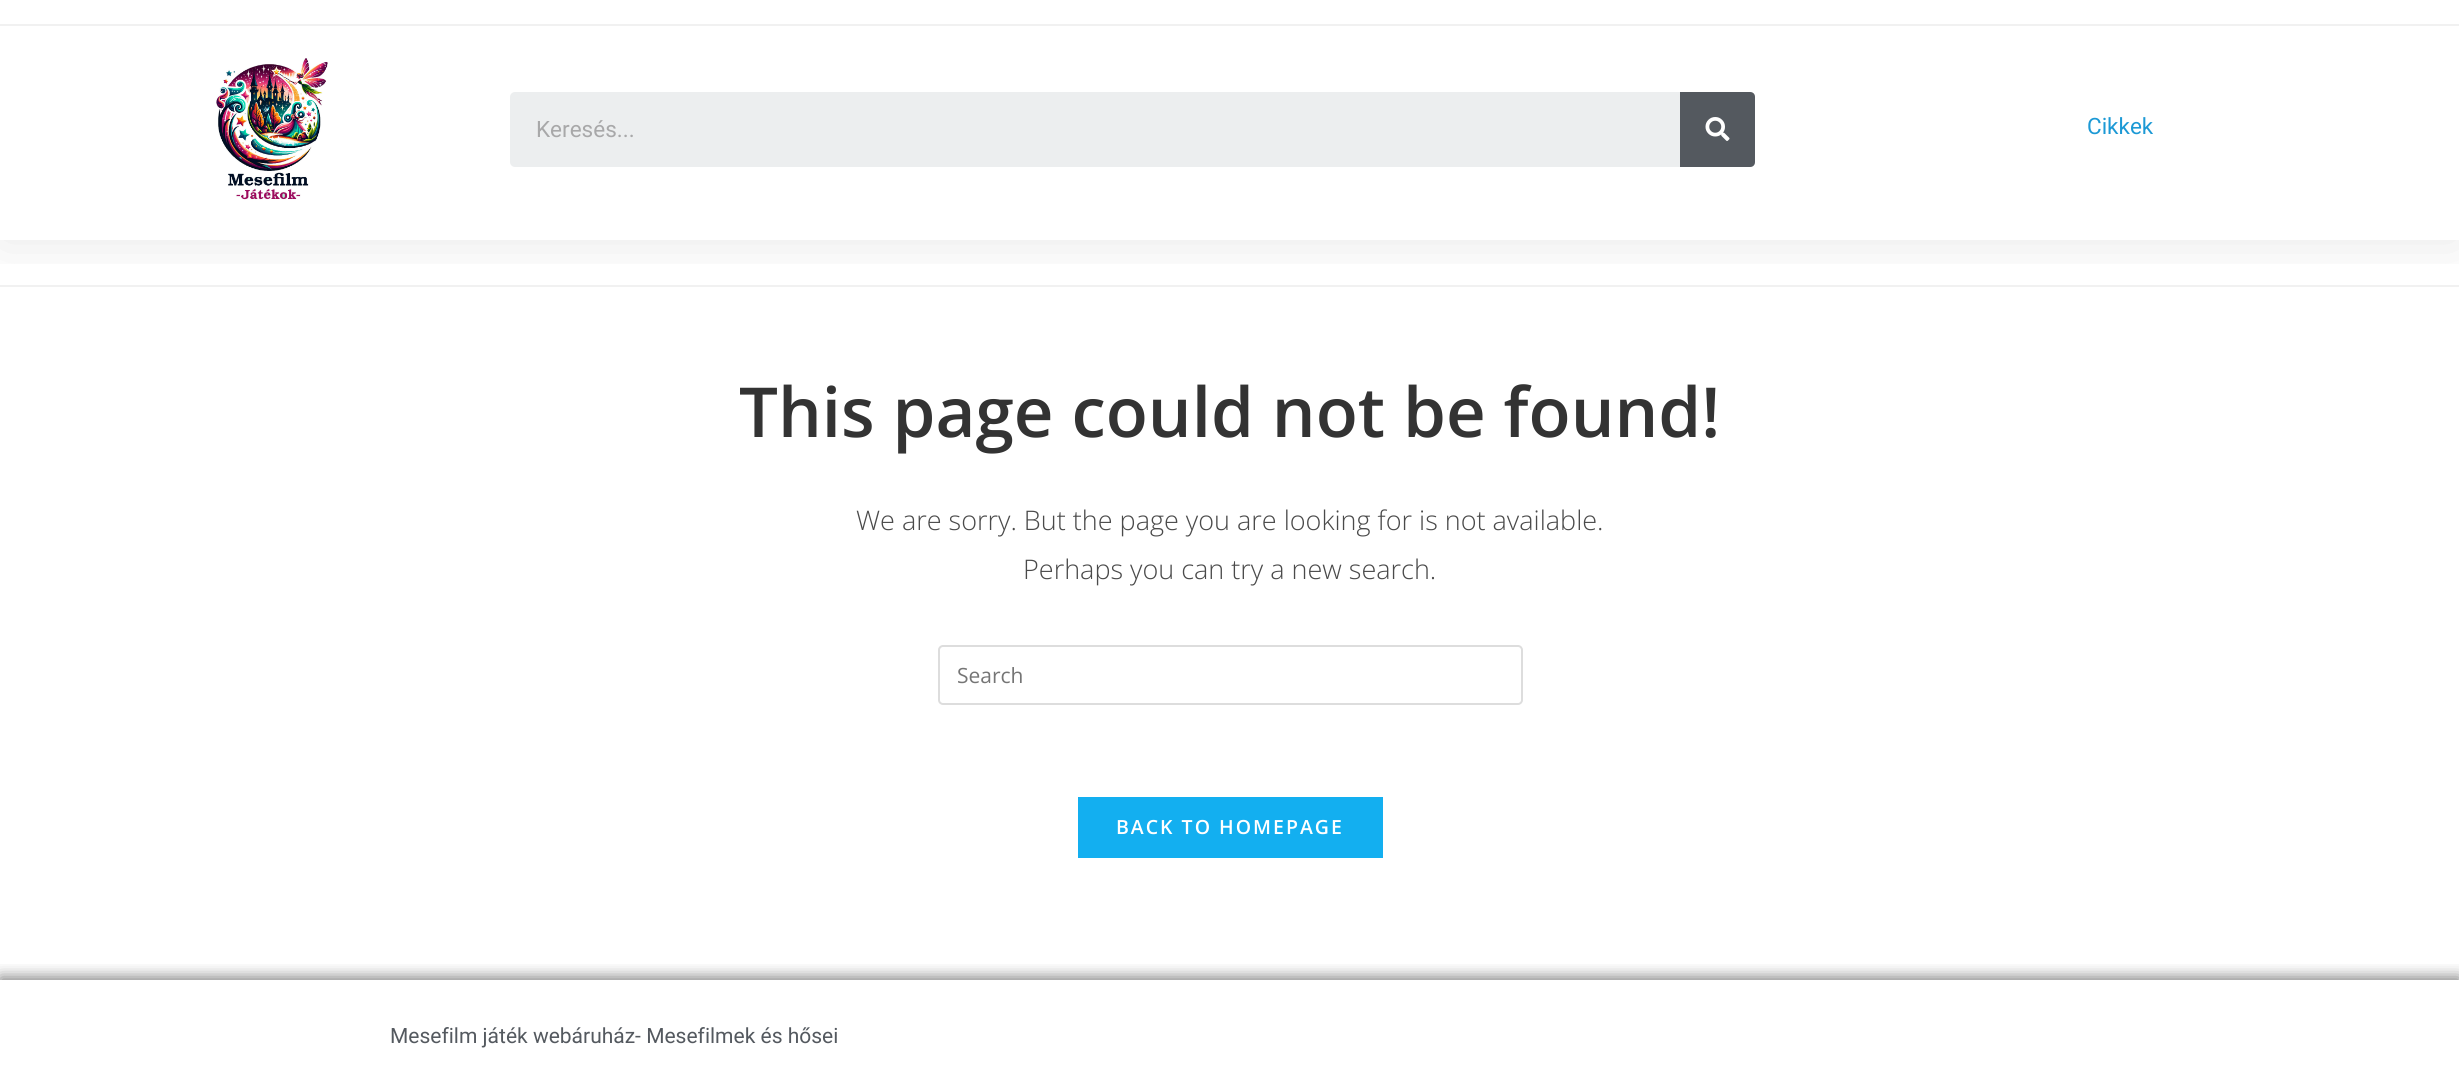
#include <cairo/cairo.h>
#include <math.h>
#include <stddef.h>

static cairo_t *cr;

static void rgb(unsigned color)
{
	cairo_set_source_rgb(cr, (color >> 16) / 255.0, (color >> 8 & 255) / 255.0, (color & 255) / 255.0);
}

static void tracked(double x, double y, const char *s, double letter, double word)
{
	cairo_move_to(cr, x, y);
	while (*s) {
		char ch[5] = {0};
		int n = 0;
		do ch[n++] = *s++; while ((*s & 0xC0) == 0x80);
		cairo_show_text(cr, ch);
		cairo_rel_move_to(cr, letter + word * (*ch == ' '), 0);
	}
}

static void rrect(double x, double y, double w, double h, double r)
{
	cairo_new_sub_path(cr);
	cairo_arc(cr, x + w - r, y + h - r, r, 0, M_PI / 2);
	cairo_arc(cr, x + r, y + h - r, r, M_PI / 2, M_PI);
	cairo_arc(cr, x + r, y + r, r, M_PI, 1.5 * M_PI);
	cairo_arc(cr, x + w - r, y + r, r, 1.5 * M_PI, 2 * M_PI);
	cairo_close_path(cr);
}

static void soft_shadow(double x, double y, double w, double h, double r, double blur, double alpha)
{
	cairo_push_group_with_content(cr, CAIRO_CONTENT_ALPHA);
	cairo_set_operator(cr, CAIRO_OPERATOR_SOURCE);
	for (int i = 15; i >= -15 && fmin(w, h) + blur * i / 3 > 0; i -= 2) {
		double e = blur * i / 6;
		cairo_set_source_rgba(cr, 0, 0, 0, alpha * erfc((i - 1) / 8.5) / 2);
		rrect(x - e, y - e, w + 2 * e, h + 2 * e, fmax(0, fmin(r + e + blur * .6, fmin(w, h) / 2 + e)));
		cairo_fill(cr);
	}
	cairo_pattern_t *soft = cairo_pop_group(cr);
	cairo_mask(cr, soft);
	cairo_pattern_destroy(soft);
}

static void image(const char *path, double x, double y, double w, double h)
{
	cairo_surface_t *image = cairo_image_surface_create_from_png(path);
	cairo_save(cr);
	cairo_set_source_surface(cr, image, x, y);
	cairo_rectangle(cr, x, y, w, h);
	cairo_fill(cr);
	cairo_restore(cr);
	cairo_surface_destroy(image);
}

int main(void) {
	cairo_surface_t *surface = cairo_image_surface_create(CAIRO_FORMAT_RGB24, 2459, 1079);
	cr = cairo_create(surface);
	cairo_font_options_t *options = cairo_font_options_create();
	cairo_font_options_set_hint_metrics(options, CAIRO_HINT_METRICS_OFF);
	cairo_font_options_set_hint_style(options, CAIRO_HINT_STYLE_NONE);
	cairo_set_font_options(cr, options);
	cairo_set_miter_limit(cr, 4);
	rgb(0xffffff);
	cairo_paint(cr);
	rgb(0xf1f1f1);
	cairo_rectangle(cr, 0, 285, 2459, 2);
	cairo_fill(cr);
	cairo_save(cr);
	cairo_rectangle(cr, 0, 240, 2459, 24);
	cairo_clip(cr);
	rgb(0x000000);
	soft_shadow(0, 26, 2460, 214, 0, 28.5, 0.1);
	cairo_restore(cr);
	rgb(0xffffff);
	cairo_rectangle(cr, 0, 0, 2459, 24);
	cairo_fill(cr);
	rgb(0xf1f1f1);
	cairo_rectangle(cr, 0, 24, 2459, 2);
	cairo_fill(cr);
	image("img/1.png", 216, 58, 112, 142);
	rgb(0xeceeef);
	rrect(510, 92, 1245, 75, 5);
	cairo_fill(cr);
	rgb(0x54595f);
	cairo_new_path(cr);
	cairo_move_to(cr, 1680, 92);
	cairo_line_to(cr, 1750, 92);
	cairo_curve_to(cr, 1753, 92, 1755, 94, 1755, 97);
	cairo_line_to(cr, 1755, 162);
	cairo_curve_to(cr, 1755, 165, 1753, 167, 1750, 167);
	cairo_line_to(cr, 1680, 167);
	cairo_close_path(cr);
	cairo_fill(cr);
	image("img/2.png", 1705, 117, 25, 24);
	rrect(939, 646, 583, 58, 4);
	rgb(0xdddddd);
	cairo_stroke(cr);
	rgb(0x13aff0);
	cairo_rectangle(cr, 1078, 797, 305, 61);
	cairo_fill(cr);
	cairo_save(cr);
	cairo_rectangle(cr, 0, 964, 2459, 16);
	cairo_clip(cr);
	rgb(0x000000);
	soft_shadow(0, 977, 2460, 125, 0, 7.5, 0.5);
	cairo_restore(cr);
	cairo_select_font_face(cr, "Roboto", CAIRO_FONT_SLANT_NORMAL, CAIRO_FONT_WEIGHT_NORMAL);
	cairo_set_font_size(cr, 22.5);
	rgb(0xa8a8a9);
	cairo_move_to(cr, 536, 137);
	cairo_show_text(cr, "Keresés...");
	rgb(0x1c99d5);
	cairo_move_to(cr, 2087, 134);
	cairo_show_text(cr, "Cikkek");
	cairo_select_font_face(cr, "Open Sans SemiBold", CAIRO_FONT_SLANT_NORMAL, CAIRO_FONT_WEIGHT_NORMAL);
	cairo_set_font_size(cr, 69);
	rgb(0x333333);
	cairo_move_to(cr, 739, 437);
	cairo_show_text(cr, "This page could not be found!");
	cairo_select_font_face(cr, "Open Sans Light", CAIRO_FONT_SLANT_NORMAL, CAIRO_FONT_WEIGHT_NORMAL);
	cairo_set_font_size(cr, 27);
	rgb(0x4a4a4a);
	cairo_move_to(cr, 856, 530);
	cairo_show_text(cr, "We are sorry. But the page you are looking for is not available.");
	cairo_move_to(cr, 1023, 579);
	cairo_show_text(cr, "Perhaps you can try a new search.");
	cairo_select_font_face(cr, "Open Sans", CAIRO_FONT_SLANT_NORMAL, CAIRO_FONT_WEIGHT_NORMAL);
	cairo_set_font_size(cr, 21);
	rgb(0x757575);
	cairo_move_to(cr, 957, 683);
	cairo_show_text(cr, "Search");
	cairo_select_font_face(cr, "Open Sans SemiBold", CAIRO_FONT_SLANT_NORMAL, CAIRO_FONT_WEIGHT_NORMAL);
	cairo_set_font_size(cr, 19.5);
	rgb(0xffffff);
	tracked(1116, 834, "BACK TO HOMEPAGE", 2, 0);
	cairo_select_font_face(cr, "Roboto", CAIRO_FONT_SLANT_NORMAL, CAIRO_FONT_WEIGHT_NORMAL);
	cairo_set_font_size(cr, 21);
	rgb(0x54595f);
	cairo_move_to(cr, 390, 1043);
	cairo_show_text(cr, "Mesefilm játék webáruház- Mesefilmek és hősei");
	cairo_surface_write_to_png(surface, "page.png");
	cairo_font_options_destroy(options);
	cairo_destroy(cr);
	cairo_surface_destroy(surface);
	return 0;
}
